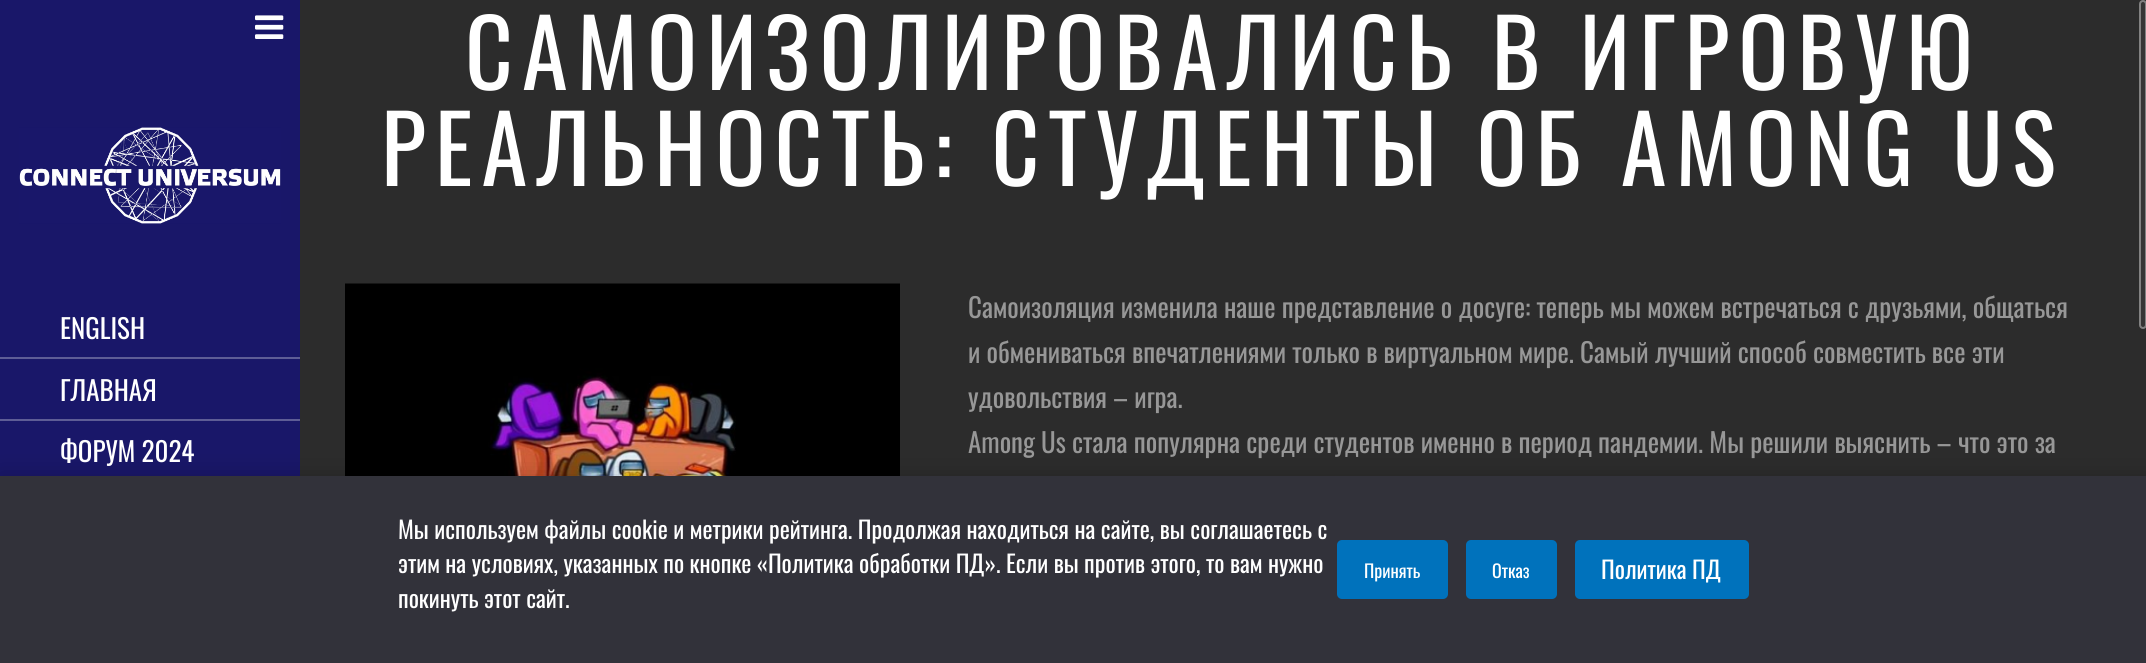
#include <cairo/cairo.h>
#include <math.h>
#include <stddef.h>

typedef struct { double x, y; const char *s; } line_t;
typedef struct { double x, y, w, h; unsigned color; } box_t;
static cairo_t *cr;

static void rgb(unsigned color)
{
	cairo_set_source_rgb(cr, (color >> 16) / 255.0, (color >> 8 & 255) / 255.0, (color & 255) / 255.0);
}

static void tracked(double x, double y, const char *s, double letter, double word)
{
	cairo_move_to(cr, x, y);
	while (*s) {
		char ch[5] = {0};
		int n = 0;
		do ch[n++] = *s++; while ((*s & 0xC0) == 0x80);
		cairo_show_text(cr, ch);
		cairo_rel_move_to(cr, letter + word * (*ch == ' '), 0);
	}
}

static void rrect(double x, double y, double w, double h, double r)
{
	cairo_new_sub_path(cr);
	cairo_arc(cr, x + w - r, y + h - r, r, 0, M_PI / 2);
	cairo_arc(cr, x + r, y + h - r, r, M_PI / 2, M_PI);
	cairo_arc(cr, x + r, y + r, r, M_PI, 1.5 * M_PI);
	cairo_arc(cr, x + w - r, y + r, r, 1.5 * M_PI, 2 * M_PI);
	cairo_close_path(cr);
}

static void soft_shadow(double x, double y, double w, double h, double r, double blur, double alpha)
{
	cairo_push_group_with_content(cr, CAIRO_CONTENT_ALPHA);
	cairo_set_operator(cr, CAIRO_OPERATOR_SOURCE);
	for (int i = 15; i >= -15 && fmin(w, h) + blur * i / 3 > 0; i -= 2) {
		double e = blur * i / 6;
		cairo_set_source_rgba(cr, 0, 0, 0, alpha * erfc((i - 1) / 8.5) / 2);
		rrect(x - e, y - e, w + 2 * e, h + 2 * e, fmax(0, fmin(r + e + blur * .6, fmin(w, h) / 2 + e)));
		cairo_fill(cr);
	}
	cairo_pattern_t *soft = cairo_pop_group(cr);
	cairo_mask(cr, soft);
	cairo_pattern_destroy(soft);
}

static void image(const char *path, double x, double y, double w, double h)
{
	cairo_surface_t *image = cairo_image_surface_create_from_png(path);
	cairo_save(cr);
	cairo_set_source_surface(cr, image, x, y);
	cairo_rectangle(cr, x, y, w, h);
	cairo_fill(cr);
	cairo_restore(cr);
	cairo_surface_destroy(image);
}

int main(void) {
	cairo_surface_t *surface = cairo_image_surface_create(CAIRO_FORMAT_RGB24, 2146, 663);
	cr = cairo_create(surface);
	cairo_font_options_t *options = cairo_font_options_create();
	cairo_font_options_set_hint_metrics(options, CAIRO_HINT_METRICS_OFF);
	cairo_font_options_set_hint_style(options, CAIRO_HINT_STYLE_NONE);
	cairo_set_font_options(cr, options);
	cairo_set_miter_limit(cr, 4);
	rgb(0x191769);
	cairo_paint(cr);
	image("img/1.png", 255, 15, 29, 24);
	image("img/2.png", 19, 127, 262, 97);
	{
		static const box_t items[] = {
			{0, 357, 300, 2, 0x5e5d96},
			{0, 419, 300, 2, 0x5e5d96},
			{300, 0, 1846, 476, 0x2c2c2c},
		};
		for (size_t i = 0; i < sizeof items / sizeof *items; i++) {
			rgb(items[i].color);
			cairo_rectangle(cr, items[i].x, items[i].y, items[i].w, items[i].h);
			cairo_fill(cr);
		}
	}
	image("img/3.png", 345, 283, 555, 193);
	rgb(0x353535);
	rrect(2140, 1, 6, 327, 3);
	cairo_fill_preserve(cr);
	rgb(0x828282);
	cairo_stroke(cr);
	rgb(0x000000);
	soft_shadow(0, 476, 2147, 187, 0, 12, 0.2);
	rgb(0x32323a);
	cairo_rectangle(cr, 0, 476, 2146, 187);
	cairo_fill(cr);
	rgb(0x0072bc);
	rrect(1337, 540, 111, 59, 5);
	cairo_fill(cr);
	rrect(1466, 540, 91, 59, 5);
	cairo_fill(cr);
	rrect(1575, 540, 174, 59, 5);
	cairo_fill(cr);
	cairo_select_font_face(cr, "Oswald", CAIRO_FONT_SLANT_NORMAL, CAIRO_FONT_WEIGHT_NORMAL);
	cairo_set_font_size(cr, 27);
	rgb(0xffffff);
	{
		static const line_t items[] = {
			{60, 339, "ENGLISH"},
			{60, 401, "ГЛАВНАЯ"},
			{60, 462, "ФОРУМ 2024"},
		};
		for (size_t i = 0; i < sizeof items / sizeof *items; i++) {
			cairo_move_to(cr, items[i].x, items[i].y);
			cairo_show_text(cr, items[i].s);
		}
	}
	cairo_set_font_size(cr, 93);
	tracked(465, 90, "САМОИЗОЛИРОВАЛИСЬ В ИГРОВУЮ", 9, 0);
	tracked(381, 186, "РЕАЛЬНОСТЬ: СТУДЕНТЫ ОБ АMONG US", 9, 0);
	cairo_set_font_size(cr, 27);
	rgb(0x979797);
	{
		static const line_t items[] = {
			{968, 318, "Самоизоляция изменила наше представление о досуге: теперь мы можем встречаться с друзьями, общаться"},
			{968, 363, "и обмениваться впечатлениями только в виртуальном мире. Самый лучший способ совместить все эти"},
			{968, 408, "удовольствия – игра."},
			{968, 453, "Аmong Us стала популярна среди студентов именно в период пандемии. Мы решили выяснить – что это за"},
		};
		for (size_t i = 0; i < sizeof items / sizeof *items; i++) {
			cairo_move_to(cr, items[i].x, items[i].y);
			cairo_show_text(cr, items[i].s);
		}
	}
	cairo_set_font_size(cr, 24);
	rgb(0xffffff);
	{
		static const line_t items[] = {
			{398, 539, "Мы используем файлы cookie и метрики рейтинга. Продолжая находиться на сайте, вы соглашаетесь с"},
			{398, 573, "этим на условиях, указанных по кнопке «Политика обработки ПД». Если вы против этого, то вам нужно"},
			{398, 608, "покинуть этот сайт."},
		};
		for (size_t i = 0; i < sizeof items / sizeof *items; i++) {
			cairo_move_to(cr, items[i].x, items[i].y);
			cairo_show_text(cr, items[i].s);
		}
	}
	cairo_set_font_size(cr, 18);
	cairo_move_to(cr, 1364, 578);
	cairo_show_text(cr, "Принять");
	cairo_move_to(cr, 1492, 578);
	cairo_show_text(cr, "Отказ");
	cairo_set_font_size(cr, 24);
	cairo_move_to(cr, 1601, 579);
	cairo_show_text(cr, "Политика ПД");
	cairo_surface_write_to_png(surface, "page.png");
	cairo_font_options_destroy(options);
	cairo_destroy(cr);
	cairo_surface_destroy(surface);
	return 0;
}
